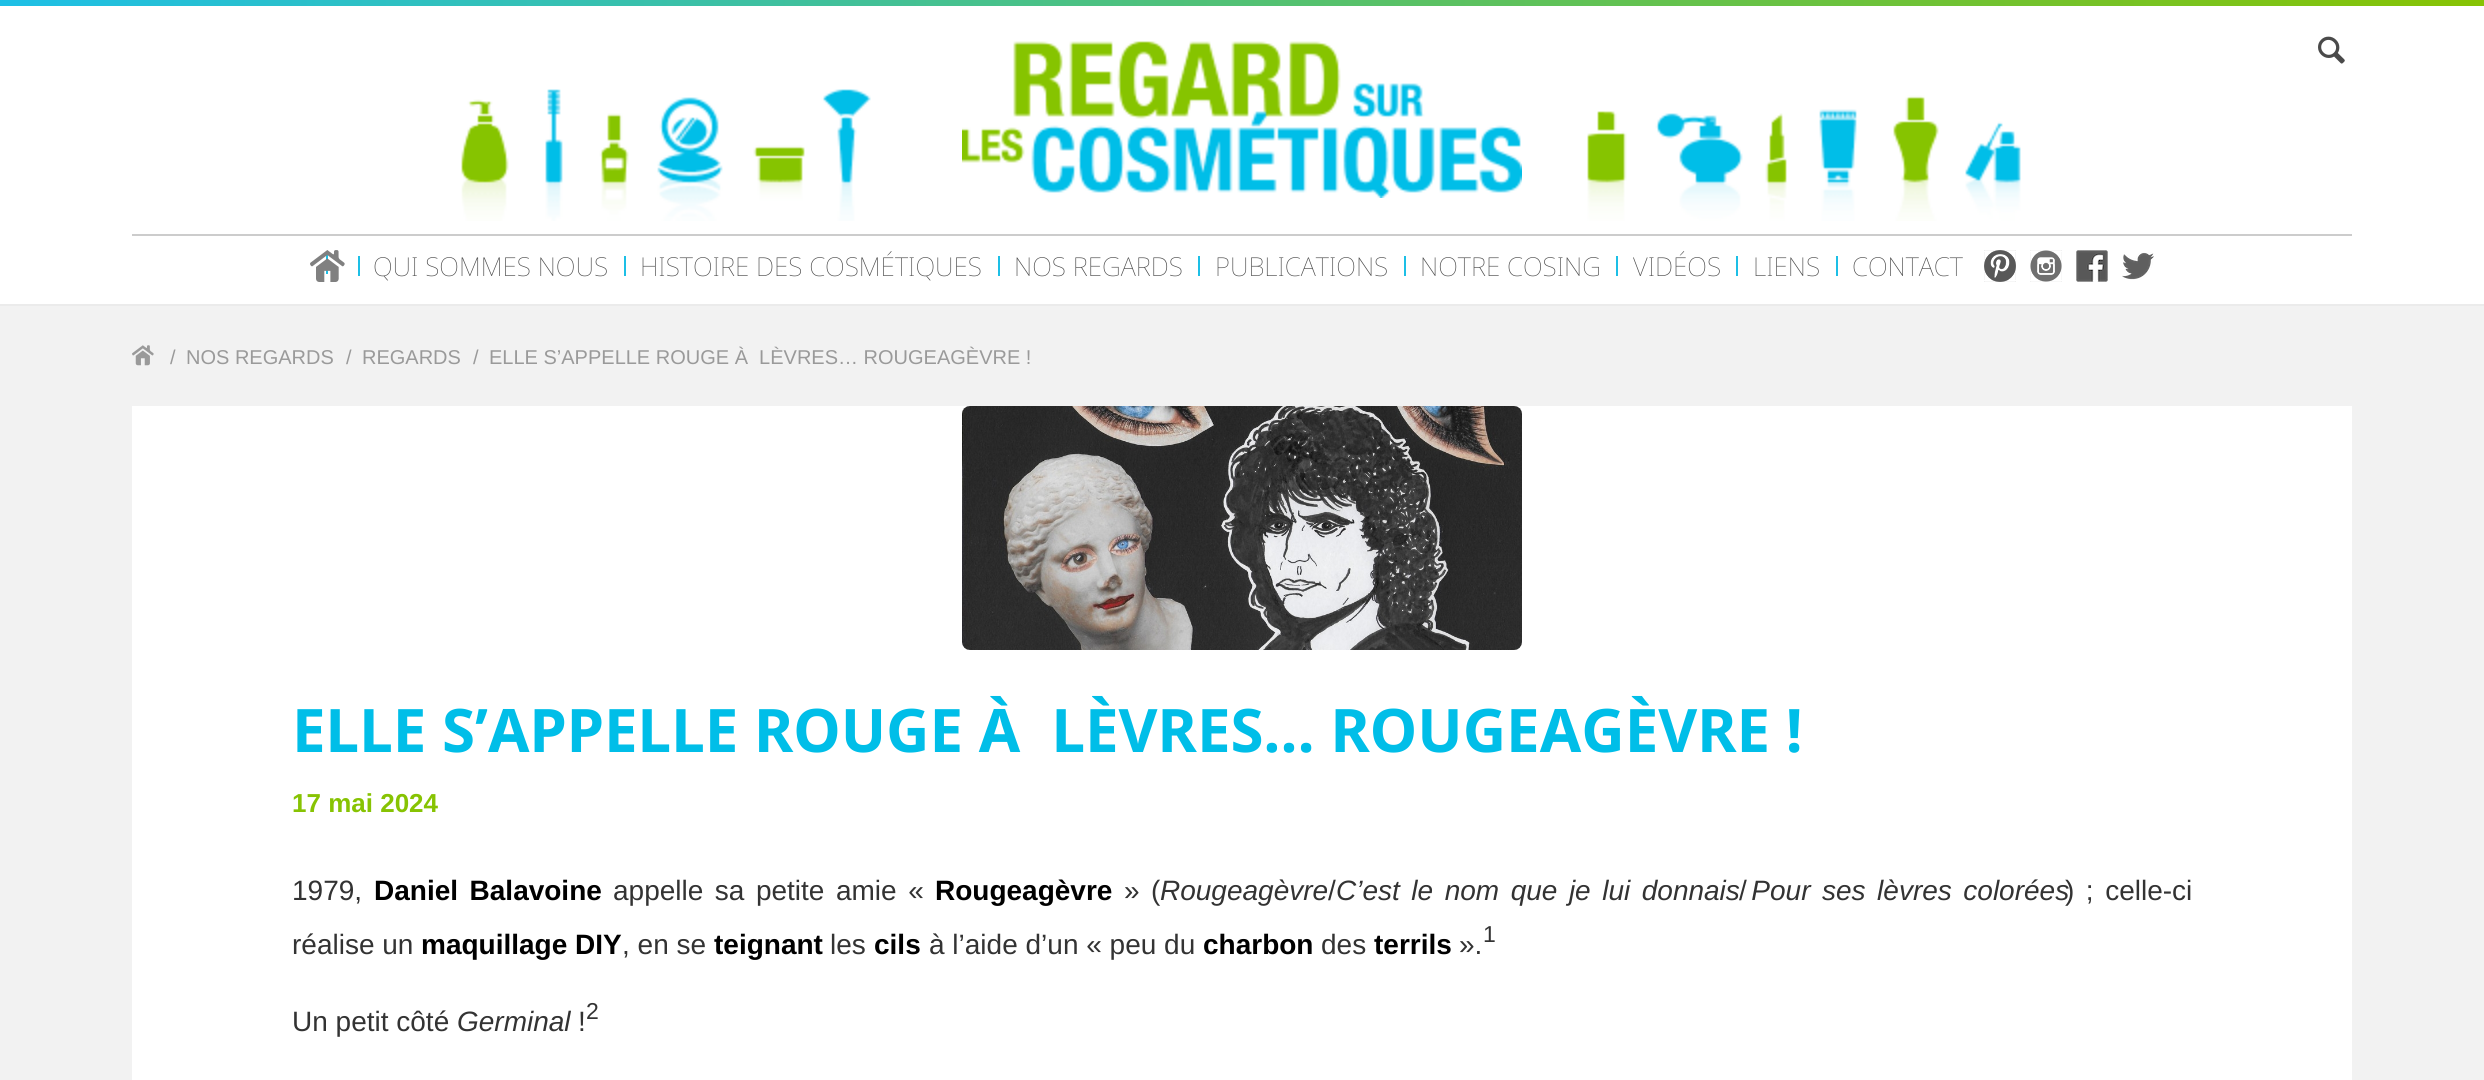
#include <cairo/cairo.h>
#include <math.h>
#include <stddef.h>

typedef struct { double x, y; const char *s; } line_t;
typedef struct { double x, y, w, h; unsigned color; } box_t;
static cairo_t *cr;

static void rgb(unsigned color)
{
	cairo_set_source_rgb(cr, (color >> 16) / 255.0, (color >> 8 & 255) / 255.0, (color & 255) / 255.0);
}

static void tracked(double x, double y, const char *s, double letter, double word)
{
	cairo_move_to(cr, x, y);
	while (*s) {
		char ch[5] = {0};
		int n = 0;
		do ch[n++] = *s++; while ((*s & 0xC0) == 0x80);
		cairo_show_text(cr, ch);
		cairo_rel_move_to(cr, letter + word * (*ch == ' '), 0);
	}
}

static void image(const char *path, double x, double y, double w, double h)
{
	cairo_surface_t *image = cairo_image_surface_create_from_png(path);
	cairo_save(cr);
	cairo_set_source_surface(cr, image, x, y);
	cairo_rectangle(cr, x, y, w, h);
	cairo_fill(cr);
	cairo_restore(cr);
	cairo_surface_destroy(image);
}

int main(void) {
	cairo_surface_t *surface = cairo_image_surface_create(CAIRO_FORMAT_RGB24, 2484, 1080);
	cr = cairo_create(surface);
	cairo_font_options_t *options = cairo_font_options_create();
	cairo_font_options_set_hint_metrics(options, CAIRO_HINT_METRICS_OFF);
	cairo_font_options_set_hint_style(options, CAIRO_HINT_STYLE_NONE);
	cairo_set_font_options(cr, options);
	cairo_set_miter_limit(cr, 4);
	cairo_pattern_t *gradient;
	rgb(0xffffff);
	cairo_paint(cr);
	gradient = cairo_pattern_create_linear(0, 3, 2484, 3);
	cairo_pattern_add_color_stop_rgba(gradient, 0, 0.114, 0.749, 0.902, 1);
	cairo_pattern_add_color_stop_rgba(gradient, 1, 0.529, 0.765, 0.012, 1);
	cairo_set_source(cr, gradient);
	cairo_pattern_destroy(gradient);
	cairo_rectangle(cr, 0, 0, 2484, 6);
	cairo_fill(cr);
	image("img/1.png", 461, 89, 1560, 132);
	image("img/2.png", 962, 41, 560, 157);
	rgb(0xcccccc);
	cairo_rectangle(cr, 132, 234, 2220, 2);
	cairo_fill(cr);
	image("img/3.png", 2318, 36, 27, 28);
	rgb(0x1dbfe6);
	cairo_rectangle(cr, 326, 254, 2, 20);
	cairo_fill(cr);
	image("img/4.png", 310, 250, 35, 32);
	{
		static const box_t items[] = {
			{358, 256, 2, 20, 0x1dbfe6},
			{624, 256, 2, 20, 0x1dbfe6},
			{998, 256, 2, 20, 0x1dbfe6},
			{1198, 256, 2, 20, 0x1dbfe6},
			{1404, 256, 2, 20, 0x1dbfe6},
			{1616, 256, 2, 20, 0x1dbfe6},
			{1736, 256, 2, 20, 0x1dbfe6},
			{1836, 256, 2, 20, 0x1dbfe6},
		};
		for (size_t i = 0; i < sizeof items / sizeof *items; i++) {
			rgb(items[i].color);
			cairo_rectangle(cr, items[i].x, items[i].y, items[i].w, items[i].h);
			cairo_fill(cr);
		}
	}
	image("img/5.png", 1984, 250, 32, 32);
	image("img/6.png", 2030, 250, 32, 32);
	image("img/7.png", 2076, 250, 32, 32);
	image("img/8.png", 2122, 252, 32, 28);
	rgb(0xf2f2f2);
	cairo_rectangle(cr, 0, 306, 2484, 774);
	cairo_fill(cr);
	image("img/9.png", 132, 345, 22, 21);
	rgb(0xebebeb);
	cairo_rectangle(cr, 0, 304, 2484, 2);
	cairo_fill(cr);
	rgb(0xffffff);
	cairo_rectangle(cr, 132, 406, 2220, 674);
	cairo_fill(cr);
	image("img/10.png", 962, 406, 560, 244);
	cairo_select_font_face(cr, "Noto Sans Thin", CAIRO_FONT_SLANT_NORMAL, CAIRO_FONT_WEIGHT_NORMAL);
	cairo_set_font_size(cr, 26);
	rgb(0x4a4a4a);
	{
		static const line_t items[] = {
			{373, 276, "QUI SOMMES NOUS"},
			{640, 276, "HISTOIRE DES COSMÉTIQUES"},
			{1014, 276, "NOS REGARDS"},
			{1215, 276, "PUBLICATIONS"},
			{1420, 276, "NOTRE COSING"},
			{1633, 276, "VIDÉOS"},
			{1753, 276, "LIENS"},
			{1852, 276, "CONTACT"},
		};
		for (size_t i = 0; i < sizeof items / sizeof *items; i++) {
			cairo_move_to(cr, items[i].x, items[i].y);
			cairo_show_text(cr, items[i].s);
		}
	}
	cairo_select_font_face(cr, "Liberation Sans", CAIRO_FONT_SLANT_NORMAL, CAIRO_FONT_WEIGHT_NORMAL);
	cairo_set_font_size(cr, 20);
	rgb(0x9a9a9a);
	{
		static const line_t items[] = {
			{170, 364, "/"},
			{186, 364, "NOS REGARDS"},
			{346, 364, "/"},
			{362, 364, "REGARDS"},
			{473, 364, "/"},
			{489, 364, "ELLE S’APPELLE ROUGE À  LÈVRES… ROUGEAGÈVRE !"},
		};
		for (size_t i = 0; i < sizeof items / sizeof *items; i++) {
			cairo_move_to(cr, items[i].x, items[i].y);
			cairo_show_text(cr, items[i].s);
		}
	}
	cairo_select_font_face(cr, "Noto Sans", CAIRO_FONT_SLANT_NORMAL, CAIRO_FONT_WEIGHT_BOLD);
	cairo_set_font_size(cr, 60);
	rgb(0x00bee8);
	cairo_move_to(cr, 292, 752);
	cairo_show_text(cr, "ELLE S’APPELLE ROUGE À  LÈVRES… ROUGEAGÈVRE !");
	cairo_select_font_face(cr, "Liberation Sans", CAIRO_FONT_SLANT_NORMAL, CAIRO_FONT_WEIGHT_BOLD);
	cairo_set_font_size(cr, 26);
	rgb(0x87c303);
	cairo_move_to(cr, 292, 812);
	cairo_show_text(cr, "17 mai 2024");
	cairo_set_font_size(cr, 28);
	rgb(0x000000);
	tracked(374, 900, "Daniel Balavoine", 0, 3.75);
	cairo_select_font_face(cr, "Liberation Sans", CAIRO_FONT_SLANT_NORMAL, CAIRO_FONT_WEIGHT_NORMAL);
	rgb(0x333333);
	tracked(613, 900, "appelle sa petite amie «", 0, 3.75);
	cairo_select_font_face(cr, "Liberation Sans", CAIRO_FONT_SLANT_NORMAL, CAIRO_FONT_WEIGHT_BOLD);
	rgb(0x000000);
	cairo_move_to(cr, 935, 900);
	cairo_show_text(cr, "Rougeagèvre");
	cairo_select_font_face(cr, "Liberation Sans", CAIRO_FONT_SLANT_NORMAL, CAIRO_FONT_WEIGHT_NORMAL);
	rgb(0x333333);
	tracked(1124, 900, "» (", 0, 3.75);
	cairo_select_font_face(cr, "Liberation Sans", CAIRO_FONT_SLANT_ITALIC, CAIRO_FONT_WEIGHT_NORMAL);
	cairo_move_to(cr, 1160, 900);
	cairo_show_text(cr, "Rougeagèvre");
	cairo_select_font_face(cr, "Liberation Sans", CAIRO_FONT_SLANT_NORMAL, CAIRO_FONT_WEIGHT_NORMAL);
	cairo_move_to(cr, 1328, 900);
	cairo_show_text(cr, "/");
	cairo_select_font_face(cr, "Liberation Sans", CAIRO_FONT_SLANT_ITALIC, CAIRO_FONT_WEIGHT_NORMAL);
	tracked(1336, 900, "C’est le nom que je lui donnais Pour ses lèvres colorées", 0, 3.75);
	cairo_select_font_face(cr, "Liberation Sans", CAIRO_FONT_SLANT_NORMAL, CAIRO_FONT_WEIGHT_NORMAL);
	cairo_move_to(cr, 292, 900);
	cairo_show_text(cr, "1979,");
	cairo_move_to(cr, 1739, 900);
	cairo_show_text(cr, "/");
	tracked(2065, 900, ") ; celle-ci", 0, 3.75);
	cairo_move_to(cr, 292, 954);
	cairo_show_text(cr, "réalise un");
	cairo_select_font_face(cr, "Liberation Sans", CAIRO_FONT_SLANT_NORMAL, CAIRO_FONT_WEIGHT_BOLD);
	rgb(0x000000);
	cairo_move_to(cr, 421, 954);
	cairo_show_text(cr, "maquillage DIY");
	cairo_select_font_face(cr, "Liberation Sans", CAIRO_FONT_SLANT_NORMAL, CAIRO_FONT_WEIGHT_NORMAL);
	rgb(0x333333);
	cairo_move_to(cr, 622, 954);
	cairo_show_text(cr, ", en se");
	cairo_select_font_face(cr, "Liberation Sans", CAIRO_FONT_SLANT_NORMAL, CAIRO_FONT_WEIGHT_BOLD);
	rgb(0x000000);
	cairo_move_to(cr, 714, 954);
	cairo_show_text(cr, "teignant");
	cairo_select_font_face(cr, "Liberation Sans", CAIRO_FONT_SLANT_NORMAL, CAIRO_FONT_WEIGHT_NORMAL);
	rgb(0x333333);
	cairo_move_to(cr, 830, 954);
	cairo_show_text(cr, "les");
	cairo_select_font_face(cr, "Liberation Sans", CAIRO_FONT_SLANT_NORMAL, CAIRO_FONT_WEIGHT_BOLD);
	rgb(0x000000);
	cairo_move_to(cr, 874, 954);
	cairo_show_text(cr, "cils");
	cairo_select_font_face(cr, "Liberation Sans", CAIRO_FONT_SLANT_NORMAL, CAIRO_FONT_WEIGHT_NORMAL);
	rgb(0x333333);
	cairo_move_to(cr, 929, 954);
	cairo_show_text(cr, "à l’aide d’un « peu du");
	cairo_select_font_face(cr, "Liberation Sans", CAIRO_FONT_SLANT_NORMAL, CAIRO_FONT_WEIGHT_BOLD);
	rgb(0x000000);
	cairo_move_to(cr, 1203, 954);
	cairo_show_text(cr, "charbon");
	cairo_select_font_face(cr, "Liberation Sans", CAIRO_FONT_SLANT_NORMAL, CAIRO_FONT_WEIGHT_NORMAL);
	rgb(0x333333);
	cairo_move_to(cr, 1321, 954);
	cairo_show_text(cr, "des");
	cairo_select_font_face(cr, "Liberation Sans", CAIRO_FONT_SLANT_NORMAL, CAIRO_FONT_WEIGHT_BOLD);
	rgb(0x000000);
	cairo_move_to(cr, 1374, 954);
	cairo_show_text(cr, "terrils");
	cairo_select_font_face(cr, "Liberation Sans", CAIRO_FONT_SLANT_NORMAL, CAIRO_FONT_WEIGHT_NORMAL);
	rgb(0x333333);
	cairo_move_to(cr, 1459, 954);
	cairo_show_text(cr, "».");
	cairo_set_font_size(cr, 23);
	cairo_move_to(cr, 1483, 942);
	cairo_show_text(cr, "1");
	cairo_set_font_size(cr, 28);
	cairo_move_to(cr, 292, 1031);
	cairo_show_text(cr, "Un petit côté");
	cairo_select_font_face(cr, "Liberation Sans", CAIRO_FONT_SLANT_ITALIC, CAIRO_FONT_WEIGHT_NORMAL);
	cairo_move_to(cr, 457, 1031);
	cairo_show_text(cr, "Germinal");
	cairo_select_font_face(cr, "Liberation Sans", CAIRO_FONT_SLANT_NORMAL, CAIRO_FONT_WEIGHT_NORMAL);
	cairo_move_to(cr, 578, 1031);
	cairo_show_text(cr, "!");
	cairo_set_font_size(cr, 23);
	cairo_move_to(cr, 586, 1019);
	cairo_show_text(cr, "2");
	cairo_surface_write_to_png(surface, "page.png");
	cairo_font_options_destroy(options);
	cairo_destroy(cr);
	cairo_surface_destroy(surface);
	return 0;
}
